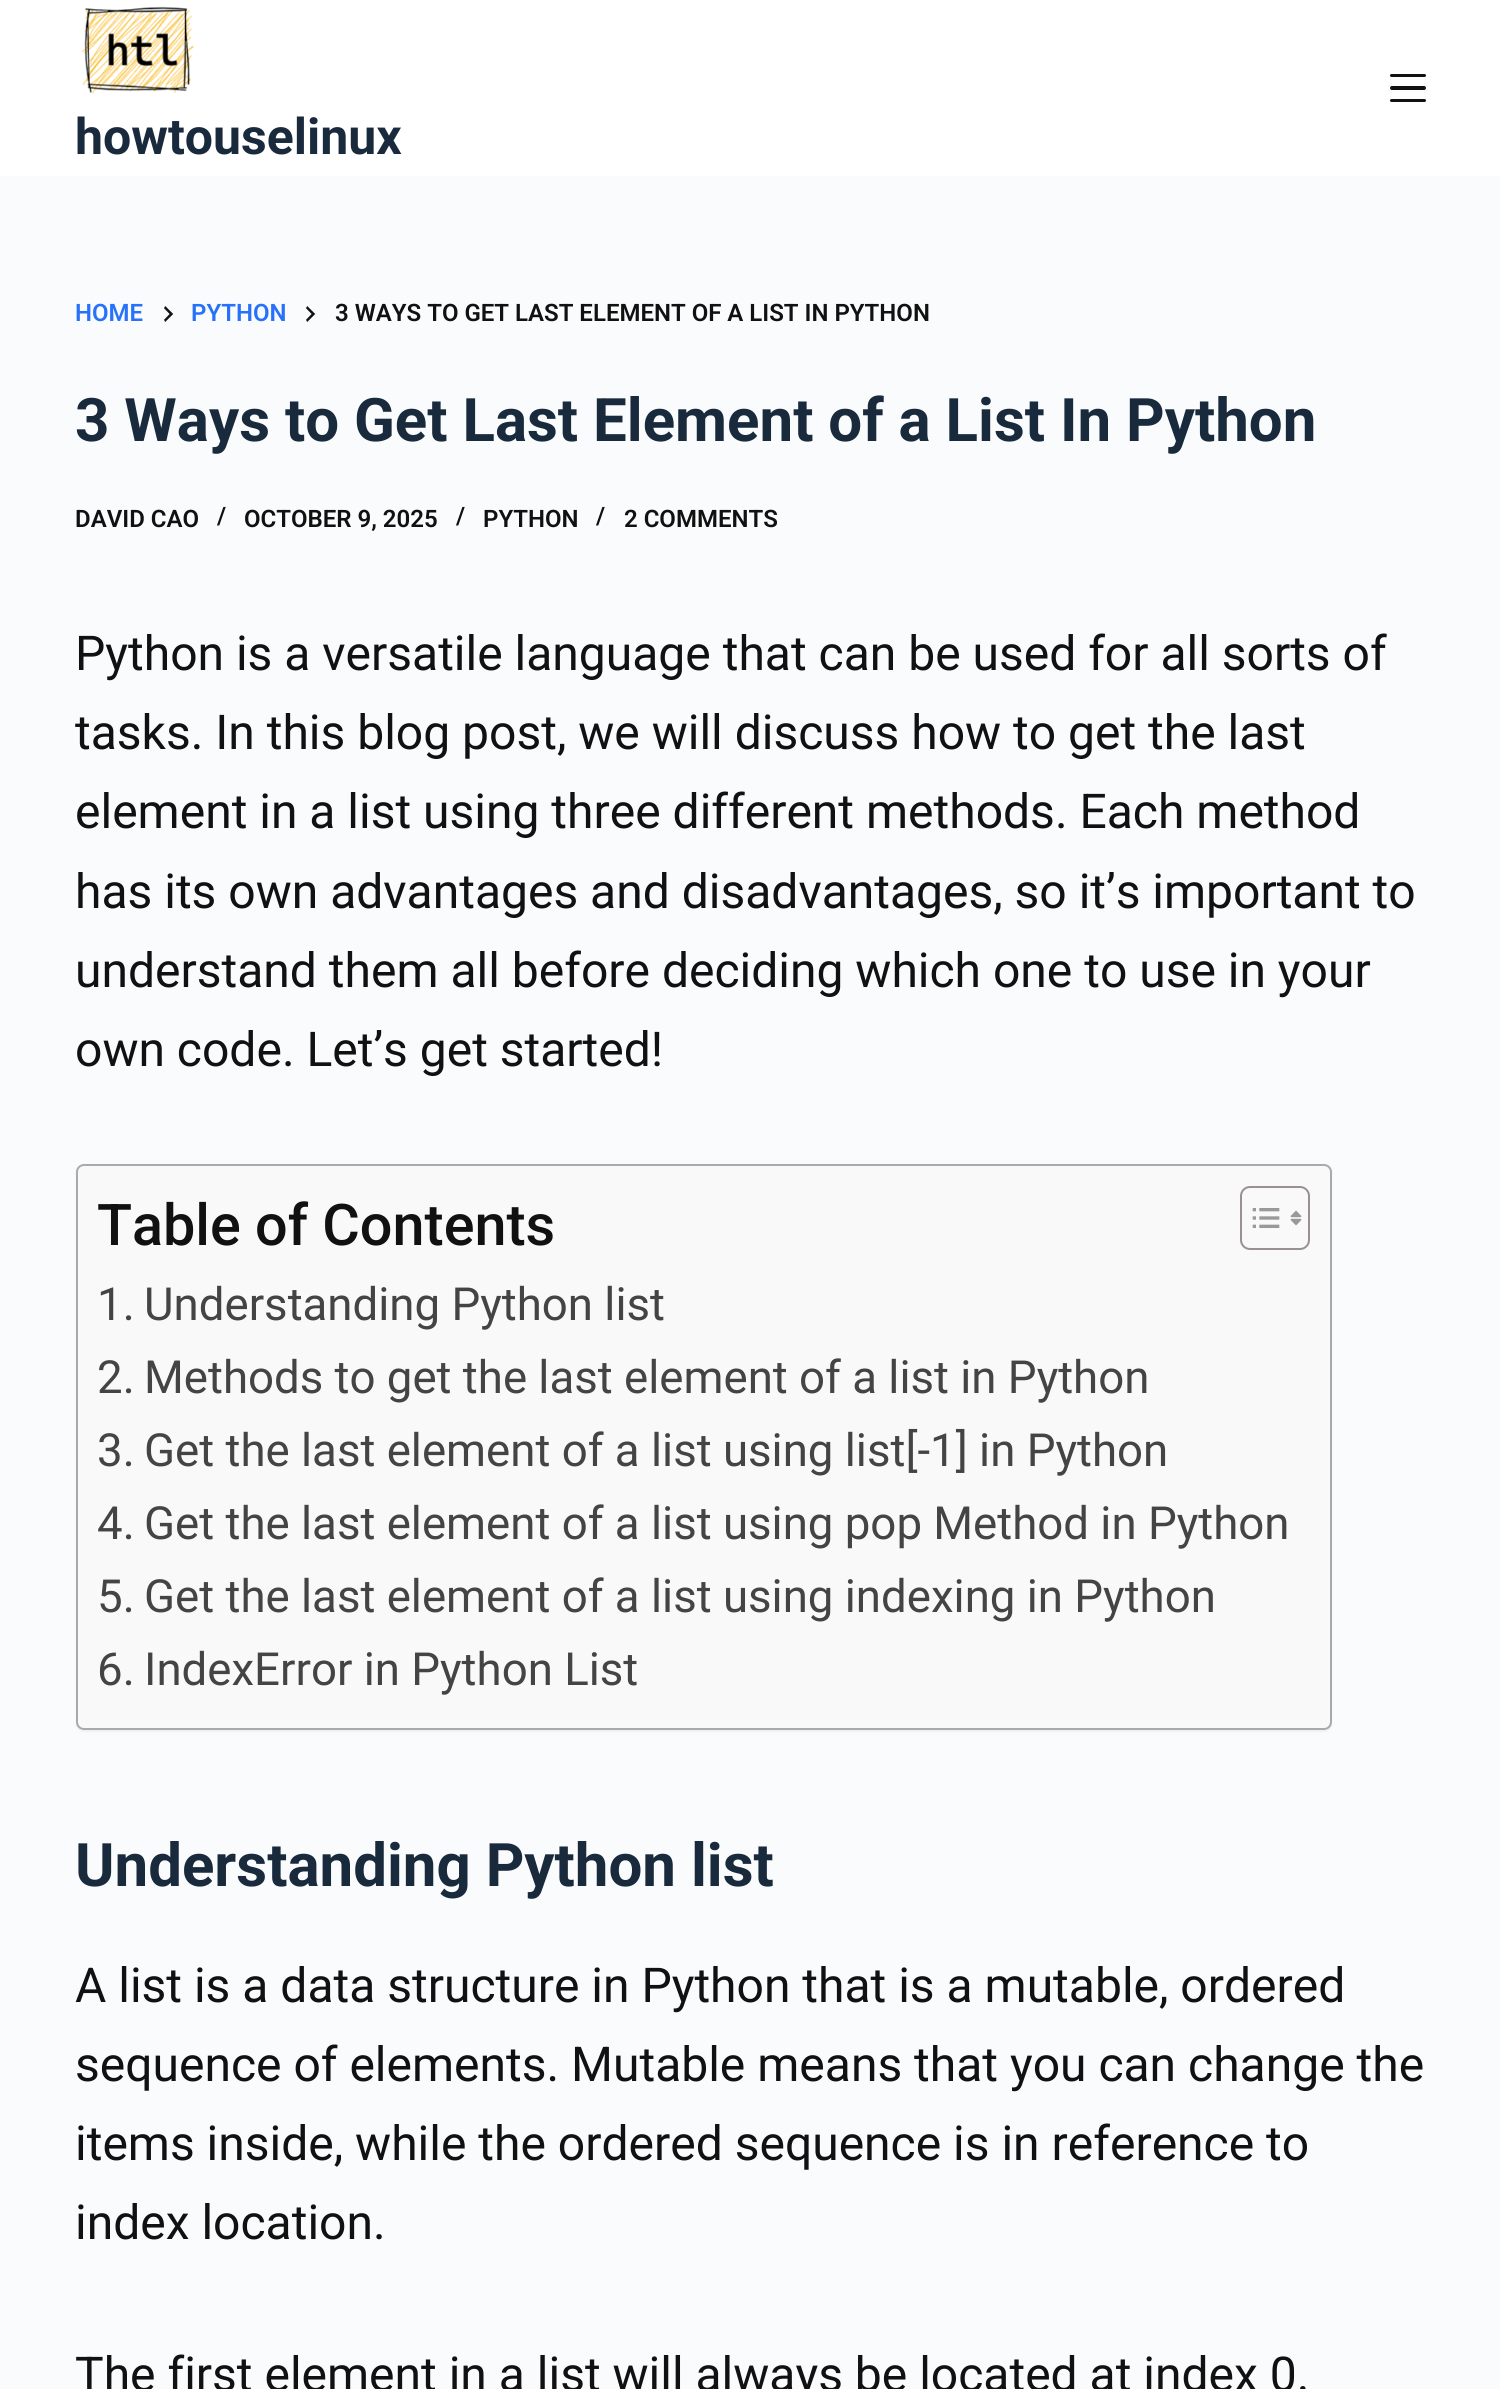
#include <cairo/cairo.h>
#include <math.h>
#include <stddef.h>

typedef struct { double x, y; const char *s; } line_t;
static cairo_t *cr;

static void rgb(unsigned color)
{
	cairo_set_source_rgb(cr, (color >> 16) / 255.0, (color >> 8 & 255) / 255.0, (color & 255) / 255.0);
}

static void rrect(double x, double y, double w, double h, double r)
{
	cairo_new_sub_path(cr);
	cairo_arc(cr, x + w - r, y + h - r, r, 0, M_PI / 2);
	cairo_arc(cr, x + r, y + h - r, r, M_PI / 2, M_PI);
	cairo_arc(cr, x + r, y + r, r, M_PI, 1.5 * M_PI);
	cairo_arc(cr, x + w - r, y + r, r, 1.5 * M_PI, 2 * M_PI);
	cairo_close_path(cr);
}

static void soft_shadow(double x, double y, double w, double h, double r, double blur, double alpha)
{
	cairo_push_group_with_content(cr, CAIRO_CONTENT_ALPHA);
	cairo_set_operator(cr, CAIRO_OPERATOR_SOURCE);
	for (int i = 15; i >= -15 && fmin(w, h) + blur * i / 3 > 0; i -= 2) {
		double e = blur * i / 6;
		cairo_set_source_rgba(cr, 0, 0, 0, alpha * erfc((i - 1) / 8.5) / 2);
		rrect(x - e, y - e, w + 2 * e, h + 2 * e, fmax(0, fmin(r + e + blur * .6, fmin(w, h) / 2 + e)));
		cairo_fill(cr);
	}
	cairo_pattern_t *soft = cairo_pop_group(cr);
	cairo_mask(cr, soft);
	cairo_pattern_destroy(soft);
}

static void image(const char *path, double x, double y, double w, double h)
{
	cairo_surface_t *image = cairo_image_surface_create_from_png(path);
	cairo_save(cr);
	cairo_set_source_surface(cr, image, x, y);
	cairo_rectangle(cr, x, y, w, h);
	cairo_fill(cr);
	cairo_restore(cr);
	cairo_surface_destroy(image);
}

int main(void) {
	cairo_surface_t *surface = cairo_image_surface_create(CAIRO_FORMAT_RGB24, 1500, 2389);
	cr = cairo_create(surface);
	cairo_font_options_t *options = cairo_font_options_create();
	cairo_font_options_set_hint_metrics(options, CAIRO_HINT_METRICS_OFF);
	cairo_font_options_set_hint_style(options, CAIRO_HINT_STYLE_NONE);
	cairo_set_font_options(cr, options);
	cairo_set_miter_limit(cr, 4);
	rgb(0xfafbfc);
	cairo_paint(cr);
	rgb(0xffffff);
	cairo_rectangle(cr, 0, 0, 1500, 176);
	cairo_fill(cr);
	rgb(0x111111);
	rrect(1390, 74, 36, 3, 1.5);
	cairo_fill(cr);
	rrect(1390, 86, 36, 4, 2);
	cairo_fill(cr);
	rrect(1390, 99, 36, 3, 1.5);
	cairo_fill(cr);
	image("img/1.png", 81, 6, 114, 88);
	image("img/2.png", 164, 306, 10, 16);
	image("img/2.png", 306, 306, 10, 16);
	rgb(0x000000);
	soft_shadow(76, 1166, 1256, 566, 8, 1, 0.05);
	rgb(0xf9f9f9);
	rrect(77, 1165, 1254, 564, 7);
	cairo_fill_preserve(cr);
	rgb(0xaaaaaa);
	cairo_stroke(cr);
	rrect(1241, 1187, 68, 62, 9);
	rgb(0x999191);
	cairo_stroke(cr);
	image("img/3.png", 1252, 1208, 28, 20);
	image("img/4.png", 1290, 1210, 12, 16);
	cairo_select_font_face(cr, "Roboto", CAIRO_FONT_SLANT_NORMAL, CAIRO_FONT_WEIGHT_BOLD);
	cairo_set_font_size(cr, 50);
	rgb(0x192a3d);
	cairo_move_to(cr, 75, 154);
	cairo_show_text(cr, "howtouselinux");
	cairo_select_font_face(cr, "Roboto SemiBold", CAIRO_FONT_SLANT_NORMAL, CAIRO_FONT_WEIGHT_NORMAL);
	cairo_set_font_size(cr, 24);
	rgb(0x2872fa);
	cairo_move_to(cr, 75, 321);
	cairo_show_text(cr, "HOME");
	cairo_move_to(cr, 191, 321);
	cairo_show_text(cr, "PYTHON");
	rgb(0x111111);
	cairo_move_to(cr, 335, 321);
	cairo_show_text(cr, "3 WAYS TO GET LAST ELEMENT OF A LIST IN PYTHON");
	cairo_select_font_face(cr, "Roboto", CAIRO_FONT_SLANT_NORMAL, CAIRO_FONT_WEIGHT_BOLD);
	cairo_set_font_size(cr, 60);
	rgb(0x192a3d);
	cairo_move_to(cr, 75, 441);
	cairo_show_text(cr, "3 Ways to Get Last Element of a List In Python");
	cairo_select_font_face(cr, "Roboto SemiBold", CAIRO_FONT_SLANT_NORMAL, CAIRO_FONT_WEIGHT_NORMAL);
	cairo_set_font_size(cr, 24);
	rgb(0x111111);
	{
		static const line_t items[] = {
			{75, 527, "DAVID CAO"},
			{217, 524, "/"},
			{244, 527, "OCTOBER 9, 2025"},
			{456, 524, "/"},
			{483, 527, "PYTHON"},
			{596, 524, "/"},
			{624, 527, "2 COMMENTS"},
		};
		for (size_t i = 0; i < sizeof items / sizeof *items; i++) {
			cairo_move_to(cr, items[i].x, items[i].y);
			cairo_show_text(cr, items[i].s);
		}
	}
	cairo_select_font_face(cr, "Roboto", CAIRO_FONT_SLANT_NORMAL, CAIRO_FONT_WEIGHT_NORMAL);
	cairo_set_font_size(cr, 48);
	{
		static const line_t items[] = {
			{75, 670, "Python is a versatile language that can be used for all sorts of"},
			{75, 749, "tasks. In this blog post, we will discuss how to get the last"},
			{75, 828, "element in a list using three different methods. Each method"},
			{75, 908, "has its own advantages and disadvantages, so it’s important to"},
			{75, 987, "understand them all before deciding which one to use in your"},
			{75, 1066, "own code. Let’s get started!"},
		};
		for (size_t i = 0; i < sizeof items / sizeof *items; i++) {
			cairo_move_to(cr, items[i].x, items[i].y);
			cairo_show_text(cr, items[i].s);
		}
	}
	cairo_select_font_face(cr, "Roboto Medium", CAIRO_FONT_SLANT_NORMAL, CAIRO_FONT_WEIGHT_NORMAL);
	cairo_set_font_size(cr, 57.5);
	cairo_move_to(cr, 97, 1245);
	cairo_show_text(cr, "Table of Contents");
	cairo_select_font_face(cr, "Roboto", CAIRO_FONT_SLANT_NORMAL, CAIRO_FONT_WEIGHT_NORMAL);
	cairo_set_font_size(cr, 45.6);
	rgb(0x444444);
	{
		static const line_t items[] = {
			{97, 1320, "1."},
			{144, 1320, "Understanding Python list"},
			{97, 1393, "2."},
			{144, 1393, "Methods to get the last element of a list in Python"},
			{97, 1466, "3."},
			{144, 1466, "Get the last element of a list using list[-1] in Python"},
			{97, 1539, "4."},
			{144, 1539, "Get the last element of a list using pop Method in Python"},
			{97, 1612, "5."},
			{144, 1612, "Get the last element of a list using indexing in Python"},
			{97, 1685, "6."},
			{144, 1685, "IndexError in Python List"},
		};
		for (size_t i = 0; i < sizeof items / sizeof *items; i++) {
			cairo_move_to(cr, items[i].x, items[i].y);
			cairo_show_text(cr, items[i].s);
		}
	}
	cairo_select_font_face(cr, "Roboto", CAIRO_FONT_SLANT_NORMAL, CAIRO_FONT_WEIGHT_BOLD);
	cairo_set_font_size(cr, 60);
	rgb(0x192a3d);
	cairo_move_to(cr, 75, 1886);
	cairo_show_text(cr, "Understanding Python list");
	cairo_select_font_face(cr, "Roboto", CAIRO_FONT_SLANT_NORMAL, CAIRO_FONT_WEIGHT_NORMAL);
	cairo_set_font_size(cr, 48);
	rgb(0x111111);
	{
		static const line_t items[] = {
			{75, 2002, "A list is a data structure in Python that is a mutable, ordered"},
			{75, 2081, "sequence of elements. Mutable means that you can change the"},
			{75, 2160, "items inside, while the ordered sequence is in reference to"},
			{75, 2239, "index location."},
			{75, 2391, "The first element in a list will always be located at index 0."},
		};
		for (size_t i = 0; i < sizeof items / sizeof *items; i++) {
			cairo_move_to(cr, items[i].x, items[i].y);
			cairo_show_text(cr, items[i].s);
		}
	}
	cairo_surface_write_to_png(surface, "page.png");
	cairo_font_options_destroy(options);
	cairo_destroy(cr);
	cairo_surface_destroy(surface);
	return 0;
}
